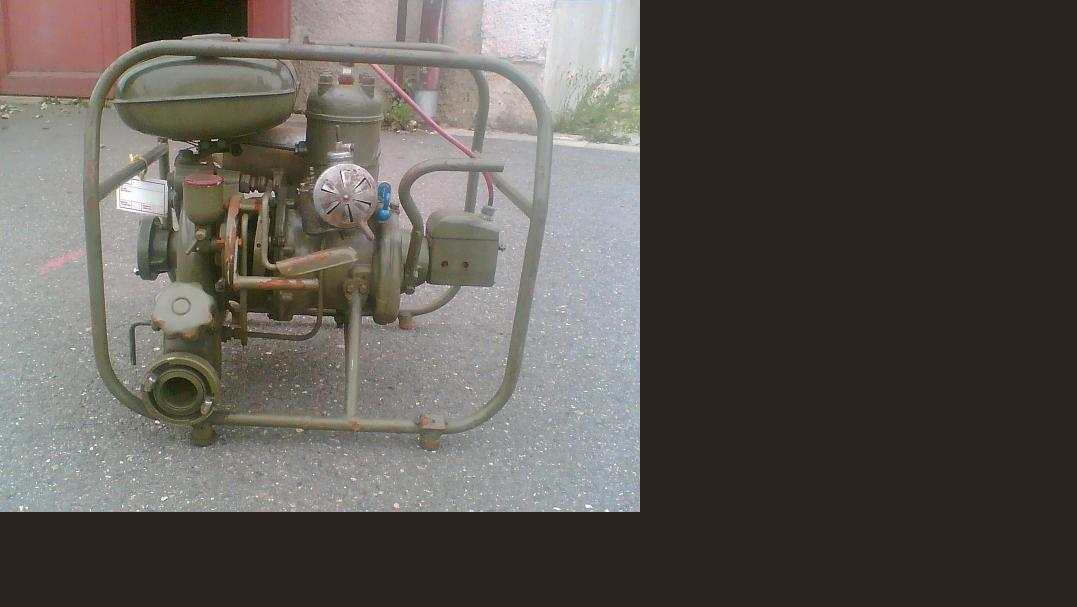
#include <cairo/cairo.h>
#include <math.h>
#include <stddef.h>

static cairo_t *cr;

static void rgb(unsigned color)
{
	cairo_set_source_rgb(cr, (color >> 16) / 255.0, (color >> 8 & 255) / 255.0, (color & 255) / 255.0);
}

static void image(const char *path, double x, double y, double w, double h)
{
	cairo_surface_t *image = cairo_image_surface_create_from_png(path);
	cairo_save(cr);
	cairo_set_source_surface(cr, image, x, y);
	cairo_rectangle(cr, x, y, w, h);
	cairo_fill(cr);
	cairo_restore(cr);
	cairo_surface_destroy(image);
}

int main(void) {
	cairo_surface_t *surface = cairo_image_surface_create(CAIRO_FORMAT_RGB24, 1077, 607);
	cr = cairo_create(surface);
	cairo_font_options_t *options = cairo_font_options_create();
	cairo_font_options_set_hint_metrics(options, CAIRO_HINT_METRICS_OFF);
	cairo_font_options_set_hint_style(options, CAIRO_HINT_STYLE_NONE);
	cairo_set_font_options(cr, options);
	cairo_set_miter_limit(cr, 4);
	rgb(0x29241e);
	cairo_paint(cr);
	image("img/1.png", 0, 0, 640, 512);
	cairo_surface_write_to_png(surface, "page.png");
	cairo_font_options_destroy(options);
	cairo_destroy(cr);
	cairo_surface_destroy(surface);
	return 0;
}
